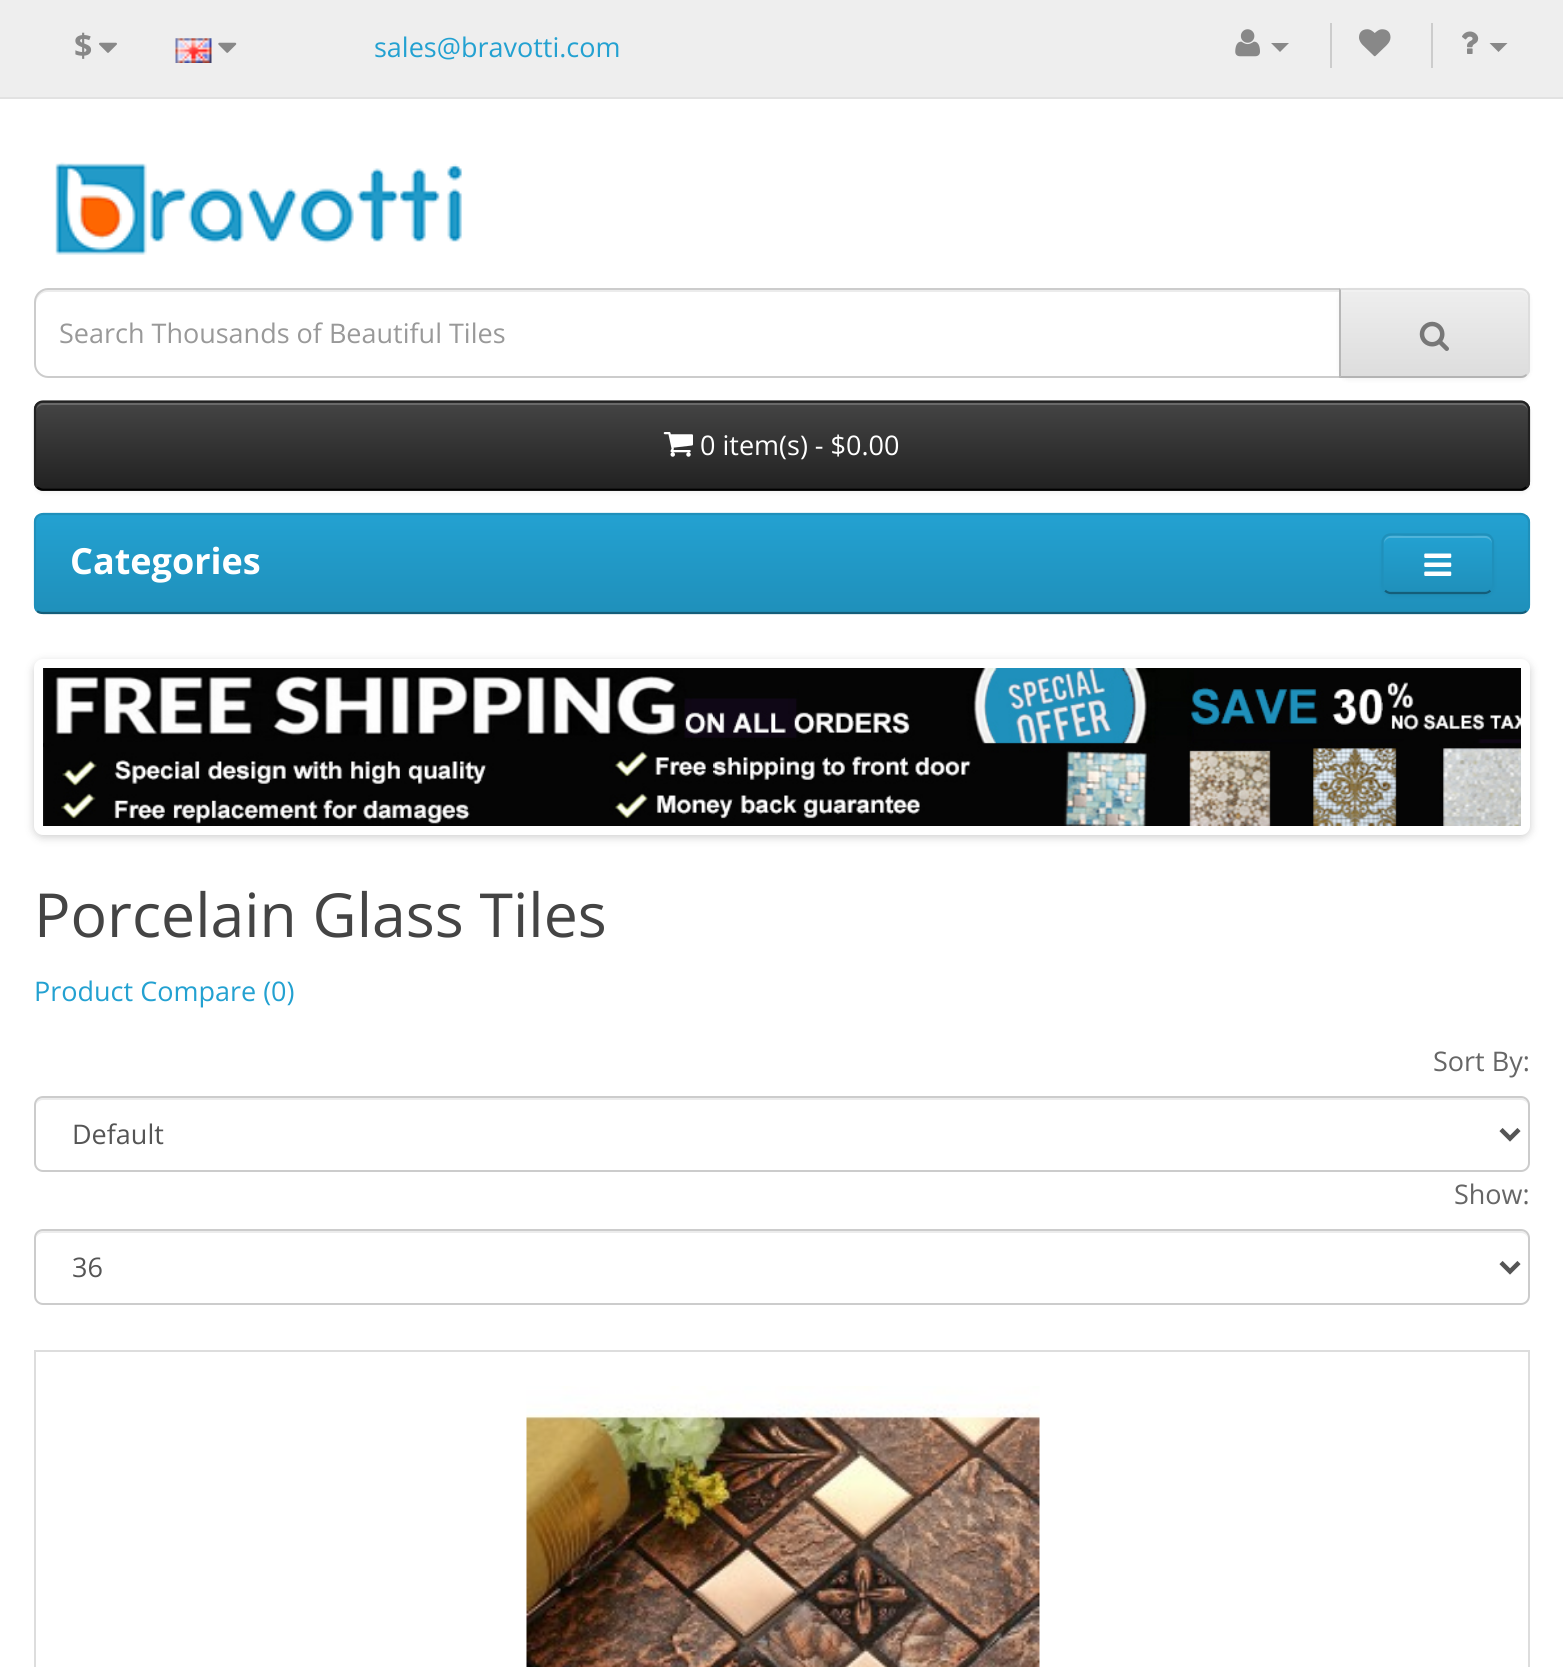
#include <cairo/cairo.h>
#include <math.h>
#include <stddef.h>

static cairo_t *cr;

static void rgb(unsigned color)
{
	cairo_set_source_rgb(cr, (color >> 16) / 255.0, (color >> 8 & 255) / 255.0, (color & 255) / 255.0);
}

static void rrect(double x, double y, double w, double h, double r)
{
	cairo_new_sub_path(cr);
	cairo_arc(cr, x + w - r, y + h - r, r, 0, M_PI / 2);
	cairo_arc(cr, x + r, y + h - r, r, M_PI / 2, M_PI);
	cairo_arc(cr, x + r, y + r, r, M_PI, 1.5 * M_PI);
	cairo_arc(cr, x + w - r, y + r, r, 1.5 * M_PI, 2 * M_PI);
	cairo_close_path(cr);
}

static void soft_shadow(double x, double y, double w, double h, double r, double blur, double alpha)
{
	cairo_push_group_with_content(cr, CAIRO_CONTENT_ALPHA);
	cairo_set_operator(cr, CAIRO_OPERATOR_SOURCE);
	for (int i = 15; i >= -15 && fmin(w, h) + blur * i / 3 > 0; i -= 2) {
		double e = blur * i / 6;
		cairo_set_source_rgba(cr, 0, 0, 0, alpha * erfc((i - 1) / 8.5) / 2);
		rrect(x - e, y - e, w + 2 * e, h + 2 * e, fmax(0, fmin(r + e + blur * .6, fmin(w, h) / 2 + e)));
		cairo_fill(cr);
	}
	cairo_pattern_t *soft = cairo_pop_group(cr);
	cairo_mask(cr, soft);
	cairo_pattern_destroy(soft);
}

static void image(const char *path, double x, double y, double w, double h)
{
	cairo_surface_t *image = cairo_image_surface_create_from_png(path);
	cairo_save(cr);
	cairo_set_source_surface(cr, image, x, y);
	cairo_rectangle(cr, x, y, w, h);
	cairo_fill(cr);
	cairo_restore(cr);
	cairo_surface_destroy(image);
}

int main(void) {
	cairo_surface_t *surface = cairo_image_surface_create(CAIRO_FORMAT_RGB24, 1563, 1667);
	cr = cairo_create(surface);
	cairo_font_options_t *options = cairo_font_options_create();
	cairo_font_options_set_hint_metrics(options, CAIRO_HINT_METRICS_OFF);
	cairo_font_options_set_hint_style(options, CAIRO_HINT_STYLE_NONE);
	cairo_set_font_options(cr, options);
	cairo_set_miter_limit(cr, 4);
	cairo_pattern_t *gradient;
	rgb(0xffffff);
	cairo_paint(cr);
	rgb(0xeeeeee);
	cairo_rectangle(cr, 0, 0, 1563, 97);
	cairo_fill(cr);
	rgb(0xe2e2e2);
	cairo_rectangle(cr, 0, 97, 1563, 2);
	cairo_fill(cr);
	image("img/1.png", 99, 42, 18, 11);
	image("img/2.png", 175, 38, 37, 25);
	image("img/3.png", 218, 42, 19, 11);
	image("img/4.png", 1235, 29, 25, 28);
	rgb(0x888888);
	cairo_new_path(cr);
	cairo_move_to(cr, 1271, 43);
	cairo_line_to(cr, 1289, 43);
	cairo_line_to(cr, 1280, 52);
	cairo_close_path(cr);
	cairo_fill(cr);
	rgb(0xcccccc);
	cairo_rectangle(cr, 1330, 23, 2, 45);
	cairo_fill(cr);
	image("img/5.png", 1359, 29, 32, 28);
	cairo_rectangle(cr, 1431, 23, 2, 45);
	cairo_fill(cr);
	image("img/6.png", 1462, 31, 17, 23);
	rgb(0x888888);
	cairo_new_path(cr);
	cairo_move_to(cr, 1489.5, 43);
	cairo_line_to(cr, 1507.5, 43);
	cairo_line_to(cr, 1498.5, 52);
	cairo_close_path(cr);
	cairo_fill(cr);
	image("img/7.png", 55, 162, 407, 93);
	rgb(0xececec);
	cairo_new_path(cr);
	cairo_move_to(cr, 47, 292);
	cairo_line_to(cr, 1339, 292);
	cairo_line_to(cr, 1339, 290);
	cairo_line_to(cr, 47, 290);
	cairo_curve_to(cr, 41, 290, 36, 295, 36, 301);
	cairo_line_to(cr, 36, 304);
	cairo_curve_to(cr, 36, 298, 41, 292, 47, 292);
	cairo_close_path(cr);
	cairo_fill(cr);
	cairo_new_path(cr);
	cairo_move_to(cr, 48, 289);
	cairo_line_to(cr, 1340, 289);
	cairo_line_to(cr, 1340, 377);
	cairo_line_to(cr, 48, 377);
	cairo_curve_to(cr, 41, 377, 35, 371, 35, 364);
	cairo_line_to(cr, 35, 302);
	cairo_curve_to(cr, 35, 295, 41, 289, 48, 289);
	cairo_close_path(cr);
	rgb(0xcccccc);
	cairo_stroke(cr);
	rgb(0x000000);
	soft_shadow(1339, 290, 191, 90, 9, 2, 0.05);
	cairo_save(cr);
	cairo_new_path(cr);
	cairo_move_to(cr, 1339, 288);
	cairo_line_to(cr, 1521, 288);
	cairo_curve_to(cr, 1526, 288, 1530, 292, 1530, 297);
	cairo_line_to(cr, 1530, 369);
	cairo_curve_to(cr, 1530, 374, 1526, 378, 1521, 378);
	cairo_line_to(cr, 1339, 378);
	cairo_close_path(cr);
	cairo_clip(cr);
	gradient = cairo_pattern_create_linear(1434, 290, 1434, 376);
	cairo_pattern_add_color_stop_rgba(gradient, 0, 0.933, 0.933, 0.933, 1);
	cairo_pattern_add_color_stop_rgba(gradient, 1, 0.867, 0.867, 0.867, 1);
	cairo_set_source(cr, gradient);
	cairo_pattern_destroy(gradient);
	cairo_rectangle(cr, 1341, 290, 189, 86);
	cairo_fill(cr);
	cairo_restore(cr);
	rgb(0xf1f1f1);
	cairo_new_path(cr);
	cairo_move_to(cr, 1341, 292);
	cairo_line_to(cr, 1521, 292);
	cairo_curve_to(cr, 1525, 292, 1528, 296, 1528, 299);
	cairo_line_to(cr, 1528, 297);
	cairo_curve_to(cr, 1528, 293, 1525, 290, 1521, 290);
	cairo_line_to(cr, 1341, 290);
	cairo_close_path(cr);
	cairo_fill(cr);
	rgb(0xdddddd);
	cairo_new_path(cr);
	cairo_move_to(cr, 1339, 288);
	cairo_line_to(cr, 1341, 290);
	cairo_line_to(cr, 1521, 290);
	cairo_curve_to(cr, 1523, 290, 1525, 291, 1526, 292);
	cairo_line_to(cr, 1527, 291);
	cairo_curve_to(cr, 1526, 289, 1524, 288, 1521, 288);
	cairo_close_path(cr);
	cairo_fill(cr);
	cairo_new_path(cr);
	cairo_move_to(cr, 1530, 369);
	cairo_line_to(cr, 1530, 297);
	cairo_curve_to(cr, 1530, 294, 1529, 292, 1527, 291);
	cairo_line_to(cr, 1526, 292);
	cairo_curve_to(cr, 1527, 293, 1528, 295, 1528, 297);
	cairo_line_to(cr, 1528, 369);
	cairo_curve_to(cr, 1528, 371, 1527, 373, 1526, 374);
	cairo_line_to(cr, 1527, 375);
	cairo_curve_to(cr, 1529, 374, 1530, 372, 1530, 369);
	cairo_close_path(cr);
	cairo_fill(cr);
	rgb(0xb3b3b3);
	cairo_new_path(cr);
	cairo_move_to(cr, 1339, 378);
	cairo_line_to(cr, 1521, 378);
	cairo_curve_to(cr, 1524, 378, 1526, 377, 1527, 375);
	cairo_line_to(cr, 1526, 374);
	cairo_curve_to(cr, 1525, 375, 1523, 376, 1521, 376);
	cairo_line_to(cr, 1341, 376);
	cairo_close_path(cr);
	cairo_fill(cr);
	rgb(0xb7b7b7);
	cairo_new_path(cr);
	cairo_move_to(cr, 1339, 288);
	cairo_line_to(cr, 1339, 378);
	cairo_line_to(cr, 1341, 376);
	cairo_line_to(cr, 1341, 290);
	cairo_close_path(cr);
	cairo_fill(cr);
	image("img/8.png", 1419, 321, 30, 30);
	rgb(0x000000);
	soft_shadow(34, 403, 1496, 90, 9, 2, 0.05);
	rgb(0x363636);
	rrect(34, 401, 1496, 90, 9);
	cairo_fill(cr);
	cairo_save(cr);
	rrect(34, 401, 1496, 90, 9);
	cairo_clip(cr);
	gradient = cairo_pattern_create_linear(782, 403, 782, 488);
	cairo_pattern_add_color_stop_rgba(gradient, 0, 0.267, 0.267, 0.267, 1);
	cairo_pattern_add_color_stop_rgba(gradient, 1, 0.133, 0.133, 0.133, 1);
	cairo_set_source(cr, gradient);
	cairo_pattern_destroy(gradient);
	cairo_rectangle(cr, 34, 403, 1496, 85);
	cairo_fill(cr);
	cairo_restore(cr);
	rgb(0x696969);
	cairo_new_path(cr);
	cairo_move_to(cr, 43, 405);
	cairo_line_to(cr, 1521, 405);
	cairo_curve_to(cr, 1525, 405, 1528, 408, 1528, 412);
	cairo_curve_to(cr, 1528, 408, 1526, 403, 1521, 403);
	cairo_line_to(cr, 43, 403);
	cairo_curve_to(cr, 38, 403, 36, 408, 36, 412);
	cairo_curve_to(cr, 36, 408, 39, 405, 43, 405);
	cairo_close_path(cr);
	cairo_fill(cr);
	cairo_new_path(cr);
	cairo_move_to(cr, 1526.5, 487);
	cairo_curve_to(cr, 1525, 488.5, 1523, 489.5, 1521, 489.5);
	cairo_line_to(cr, 43, 489.5);
	cairo_curve_to(cr, 40.5, 489.5, 38.5, 488.5, 37, 487);
	rgb(0x000000);
	cairo_set_line_width(cr, 2.2);
	cairo_stroke(cr);
	cairo_new_path(cr);
	cairo_move_to(cr, 37, 487);
	cairo_curve_to(cr, 35.5, 485.5, 35, 483.5, 35, 481.5);
	cairo_line_to(cr, 35, 409.5);
	cairo_curve_to(cr, 35, 407.5, 35.5, 405.5, 37, 404);
	cairo_curve_to(cr, 38.5, 402.5, 40.5, 401.5, 43, 401.5);
	cairo_line_to(cr, 1521, 401.5);
	cairo_curve_to(cr, 1523, 401.5, 1525, 402.5, 1526.5, 404);
	cairo_curve_to(cr, 1528, 405.5, 1529, 407.5, 1529, 409.5);
	cairo_line_to(cr, 1529, 481.5);
	cairo_curve_to(cr, 1529, 483.5, 1528, 485.5, 1526.5, 487);
	rgb(0x222222);
	cairo_stroke(cr);
	image("img/9.png", 663, 432, 30, 25);
	cairo_save(cr);
	rrect(34, 513, 1496, 101, 9);
	cairo_clip(cr);
	gradient = cairo_pattern_create_linear(782, 515, 782, 612);
	cairo_pattern_add_color_stop_rgba(gradient, 0, 0.137, 0.631, 0.82, 1);
	cairo_pattern_add_color_stop_rgba(gradient, 1, 0.122, 0.565, 0.733, 1);
	cairo_set_source(cr, gradient);
	cairo_pattern_destroy(gradient);
	cairo_rectangle(cr, 34, 515, 1496, 97);
	cairo_fill(cr);
	cairo_restore(cr);
	cairo_new_path(cr);
	cairo_move_to(cr, 1526.5, 611);
	cairo_curve_to(cr, 1525, 612.5, 1523, 613, 1521, 613);
	cairo_line_to(cr, 43, 613);
	cairo_curve_to(cr, 40.5, 613, 38.5, 612.5, 37, 611);
	rgb(0x145e7a);
	cairo_stroke(cr);
	cairo_new_path(cr);
	cairo_move_to(cr, 37, 611);
	cairo_curve_to(cr, 35.5, 609.5, 35, 607.5, 35, 605);
	cairo_line_to(cr, 35, 522);
	cairo_curve_to(cr, 35, 520, 35.5, 518, 37, 516.5);
	cairo_curve_to(cr, 38.5, 515, 40.5, 514, 43, 514);
	cairo_line_to(cr, 1521, 514);
	cairo_curve_to(cr, 1523, 514, 1525, 515, 1526.5, 516.5);
	cairo_curve_to(cr, 1528, 518, 1529, 520, 1529, 522);
	cairo_line_to(cr, 1529, 605);
	cairo_curve_to(cr, 1529, 607.5, 1528, 609.5, 1526.5, 611);
	rgb(0x1f90bb);
	cairo_stroke(cr);
	rgb(0x000000);
	soft_shadow(1382, 536, 112, 60, 9, 2, 0.05);
	rgb(0x229ac8);
	rrect(1382, 533, 112, 61, 9);
	cairo_fill(cr);
	cairo_save(cr);
	rrect(1382, 533, 112, 61, 9);
	cairo_clip(cr);
	gradient = cairo_pattern_create_linear(1438, 536, 1438, 592);
	cairo_pattern_add_color_stop_rgba(gradient, 0, 0.137, 0.631, 0.82, 1);
	cairo_pattern_add_color_stop_rgba(gradient, 1, 0.122, 0.565, 0.733, 1);
	cairo_set_source(cr, gradient);
	cairo_pattern_destroy(gradient);
	cairo_rectangle(cr, 1382, 536, 112, 56);
	cairo_fill(cr);
	cairo_restore(cr);
	cairo_set_source_rgba(cr, 1, 1, 1, 0.2);
	cairo_new_path(cr);
	cairo_move_to(cr, 1390, 538);
	cairo_line_to(cr, 1485, 538);
	cairo_curve_to(cr, 1489, 538, 1492, 541, 1492, 544);
	cairo_curve_to(cr, 1492, 532, 1477, 536, 1469, 536);
	cairo_line_to(cr, 1407, 536);
	cairo_curve_to(cr, 1399, 536, 1384, 532, 1384, 544);
	cairo_curve_to(cr, 1384, 541, 1387, 538, 1390, 538);
	cairo_close_path(cr);
	cairo_fill(cr);
	cairo_new_path(cr);
	cairo_move_to(cr, 1490.5, 590.5);
	cairo_curve_to(cr, 1489, 592, 1487, 593, 1485, 593);
	cairo_line_to(cr, 1390.5, 593);
	cairo_curve_to(cr, 1388.5, 593, 1386.5, 592, 1385, 590.5);
	rgb(0x145e7a);
	cairo_stroke(cr);
	cairo_new_path(cr);
	cairo_move_to(cr, 1385, 590.5);
	cairo_curve_to(cr, 1383.5, 589, 1382.5, 587, 1382.5, 585);
	cairo_line_to(cr, 1382.5, 542);
	cairo_curve_to(cr, 1382.5, 540, 1383.5, 538, 1385, 536.5);
	cairo_curve_to(cr, 1386.5, 535, 1388.5, 534.5, 1390.5, 534.5);
	cairo_line_to(cr, 1485, 534.5);
	cairo_curve_to(cr, 1487, 534.5, 1489, 535, 1490.5, 536.5);
	cairo_curve_to(cr, 1492, 538, 1493, 540, 1493, 542);
	cairo_line_to(cr, 1493, 585);
	cairo_curve_to(cr, 1493, 587, 1492, 589, 1490.5, 590.5);
	rgb(0x1f90bb);
	cairo_stroke(cr);
	image("img/10.png", 1424, 553, 28, 23);
	rgb(0x000000);
	soft_shadow(34, 662, 1496, 175, 9, 4.5, 0.2);
	rrect(38.5, 663.5, 1487, 167, 4.5);
	rgb(0xffffff);
	cairo_set_line_width(cr, 9);
	cairo_stroke(cr);
	image("img/11.png", 43, 668, 1478, 158);
	rgb(0xececec);
	cairo_new_path(cr);
	cairo_move_to(cr, 43, 1100);
	cairo_line_to(cr, 1521, 1100);
	cairo_curve_to(cr, 1525, 1100, 1528, 1103, 1528, 1107);
	cairo_curve_to(cr, 1528, 1103, 1526, 1098, 1521, 1098);
	cairo_line_to(cr, 43, 1098);
	cairo_curve_to(cr, 38, 1098, 36, 1103, 36, 1107);
	cairo_curve_to(cr, 36, 1103, 39, 1100, 43, 1100);
	cairo_close_path(cr);
	cairo_fill(cr);
	rrect(35, 1097, 1494, 74, 8);
	rgb(0xcccccc);
	cairo_set_line_width(cr, 2);
	cairo_stroke(cr);
	cairo_new_path(cr);
	cairo_move_to(cr, 1501, 1129.5);
	cairo_line_to(cr, 1510, 1138.5);
	cairo_line_to(cr, 1519, 1129.5);
	rgb(0x555555);
	cairo_set_line_width(cr, 4.5);
	cairo_stroke(cr);
	rgb(0xececec);
	cairo_new_path(cr);
	cairo_move_to(cr, 43, 1233);
	cairo_line_to(cr, 1521, 1233);
	cairo_curve_to(cr, 1525, 1233, 1528, 1236, 1528, 1240);
	cairo_curve_to(cr, 1528, 1236, 1526, 1231, 1521, 1231);
	cairo_line_to(cr, 43, 1231);
	cairo_curve_to(cr, 38, 1231, 36, 1236, 36, 1240);
	cairo_curve_to(cr, 36, 1236, 39, 1233, 43, 1233);
	cairo_close_path(cr);
	cairo_fill(cr);
	rrect(35, 1230, 1494, 74, 8);
	rgb(0xcccccc);
	cairo_set_line_width(cr, 2);
	cairo_stroke(cr);
	cairo_new_path(cr);
	cairo_move_to(cr, 1501, 1262.5);
	cairo_line_to(cr, 1510, 1271.5);
	cairo_line_to(cr, 1519, 1262.5);
	rgb(0x555555);
	cairo_set_line_width(cr, 4.5);
	cairo_stroke(cr);
	cairo_rectangle(cr, 35, 1351, 1494, 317);
	rgb(0xdddddd);
	cairo_set_line_width(cr, 2);
	cairo_stroke(cr);
	image("img/12.png", 526, 1386, 514, 281);
	cairo_select_font_face(cr, "Open Sans", CAIRO_FONT_SLANT_NORMAL, CAIRO_FONT_WEIGHT_BOLD);
	cairo_set_font_size(cr, 32);
	rgb(0x888888);
	cairo_move_to(cr, 74, 57);
	cairo_show_text(cr, "$");
	cairo_select_font_face(cr, "Open Sans", CAIRO_FONT_SLANT_NORMAL, CAIRO_FONT_WEIGHT_NORMAL);
	cairo_set_font_size(cr, 27);
	rgb(0x23a1d1);
	cairo_move_to(cr, 374, 57);
	cairo_show_text(cr, "sales@bravotti.com");
	rgb(0x999999);
	cairo_move_to(cr, 59, 343);
	cairo_show_text(cr, "Search Thousands of Beautiful Tiles");
	rgb(0xffffff);
	cairo_move_to(cr, 700, 455);
	cairo_show_text(cr, "0 item(s) - $0.00");
	cairo_select_font_face(cr, "Open Sans", CAIRO_FONT_SLANT_NORMAL, CAIRO_FONT_WEIGHT_BOLD);
	cairo_set_font_size(cr, 36);
	cairo_move_to(cr, 70, 574);
	cairo_show_text(cr, "Categories");
	cairo_select_font_face(cr, "Open Sans", CAIRO_FONT_SLANT_NORMAL, CAIRO_FONT_WEIGHT_NORMAL);
	cairo_set_font_size(cr, 60.75);
	rgb(0x444444);
	cairo_move_to(cr, 34, 937);
	cairo_show_text(cr, "Porcelain Glass Tiles");
	cairo_set_font_size(cr, 27);
	rgb(0x23a1d1);
	cairo_move_to(cr, 34, 1001);
	cairo_show_text(cr, "Product Compare (0)");
	rgb(0x666666);
	cairo_move_to(cr, 1433, 1071);
	cairo_show_text(cr, "Sort By:");
	rgb(0x555555);
	cairo_move_to(cr, 72, 1144);
	cairo_show_text(cr, "Default");
	rgb(0x666666);
	cairo_move_to(cr, 1454, 1204);
	cairo_show_text(cr, "Show:");
	rgb(0x555555);
	cairo_move_to(cr, 72, 1277);
	cairo_show_text(cr, "36");
	cairo_surface_write_to_png(surface, "page.png");
	cairo_font_options_destroy(options);
	cairo_destroy(cr);
	cairo_surface_destroy(surface);
	return 0;
}
